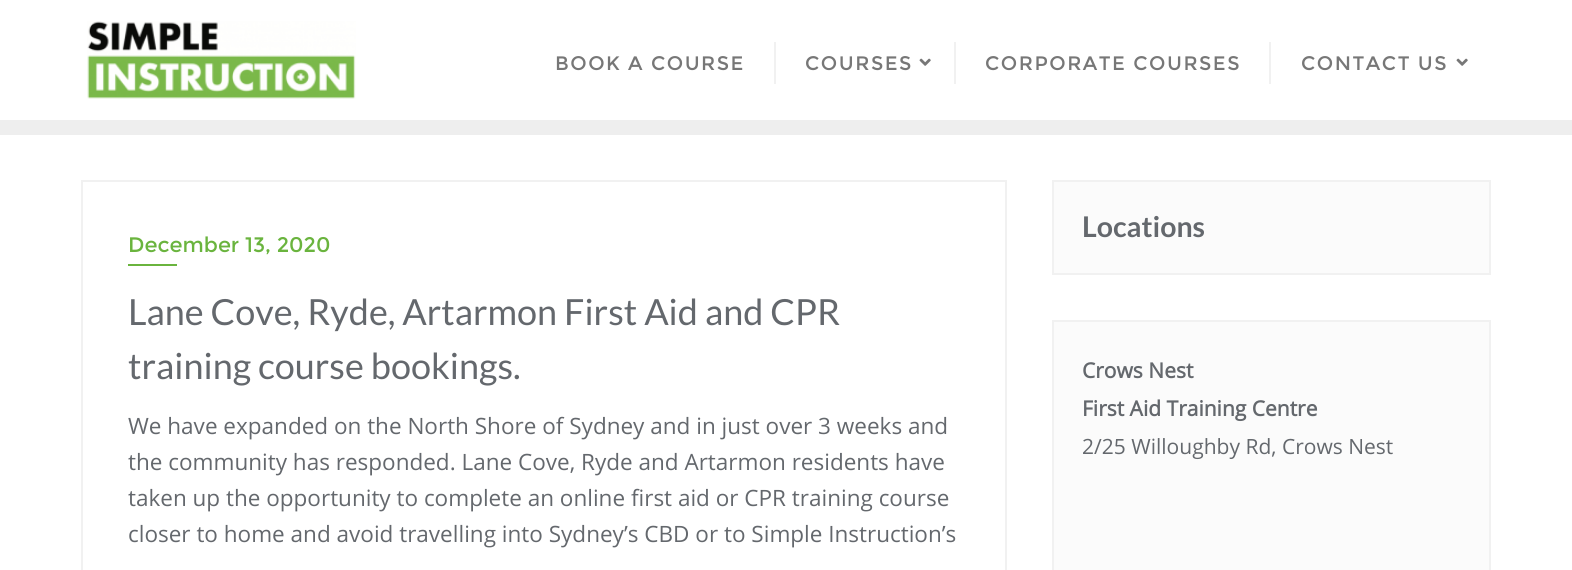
#include <cairo/cairo.h>
#include <math.h>
#include <stddef.h>

typedef struct { double x, y; const char *s; } line_t;
static cairo_t *cr;

static void rgb(unsigned color)
{
	cairo_set_source_rgb(cr, (color >> 16) / 255.0, (color >> 8 & 255) / 255.0, (color & 255) / 255.0);
}

static void tracked(double x, double y, const char *s, double letter, double word)
{
	cairo_move_to(cr, x, y);
	while (*s) {
		char ch[5] = {0};
		int n = 0;
		do ch[n++] = *s++; while ((*s & 0xC0) == 0x80);
		cairo_show_text(cr, ch);
		cairo_rel_move_to(cr, letter + word * (*ch == ' '), 0);
	}
}

static void image(const char *path, double x, double y, double w, double h)
{
	cairo_surface_t *image = cairo_image_surface_create_from_png(path);
	cairo_save(cr);
	cairo_set_source_surface(cr, image, x, y);
	cairo_rectangle(cr, x, y, w, h);
	cairo_fill(cr);
	cairo_restore(cr);
	cairo_surface_destroy(image);
}

int main(void) {
	cairo_surface_t *surface = cairo_image_surface_create(CAIRO_FORMAT_RGB24, 1572, 570);
	cr = cairo_create(surface);
	cairo_font_options_t *options = cairo_font_options_create();
	cairo_font_options_set_hint_metrics(options, CAIRO_HINT_METRICS_OFF);
	cairo_font_options_set_hint_style(options, CAIRO_HINT_STYLE_NONE);
	cairo_set_font_options(cr, options);
	cairo_set_miter_limit(cr, 4);
	rgb(0xffffff);
	cairo_paint(cr);
	rgb(0xeeeeee);
	cairo_rectangle(cr, 0, 120, 1572, 15);
	cairo_fill(cr);
	image("img/1.png", 87, 21, 269, 78);
	rgb(0xf1f1f1);
	cairo_rectangle(cr, 774, 42, 2, 42);
	cairo_fill(cr);
	image("img/2.png", 919, 58, 12, 8);
	cairo_rectangle(cr, 954, 42, 2, 42);
	cairo_fill(cr);
	cairo_rectangle(cr, 1269, 42, 2, 42);
	cairo_fill(cr);
	image("img/2.png", 1456, 58, 12, 8);
	cairo_rectangle(cr, 82, 181, 924, 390);
	cairo_stroke(cr);
	rgb(0x6ab43e);
	cairo_rectangle(cr, 128, 264, 49, 2);
	cairo_fill(cr);
	rgb(0xfbfbfb);
	cairo_rectangle(cr, 1053, 181, 437, 93);
	cairo_fill_preserve(cr);
	rgb(0xf1f1f1);
	cairo_stroke(cr);
	rgb(0xfbfbfb);
	cairo_rectangle(cr, 1053, 321, 437, 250);
	cairo_fill_preserve(cr);
	rgb(0xf1f1f1);
	cairo_stroke(cr);
	cairo_select_font_face(cr, "Montserrat", CAIRO_FONT_SLANT_NORMAL, CAIRO_FONT_WEIGHT_NORMAL);
	cairo_set_font_size(cr, 19.5);
	rgb(0x777777);
	{
		static const line_t items[] = {
			{555, 70, "BOOK A COURSE"},
			{805, 70, "COURSES"},
			{985, 70, "CORPORATE COURSES"},
			{1301, 70, "CONTACT US"},
		};
		for (size_t i = 0; i < sizeof items / sizeof *items; i++) {
			tracked(items[i].x, items[i].y, items[i].s, 1.5, 0);
		}
	}
	cairo_set_font_size(cr, 21);
	rgb(0x6ab43e);
	cairo_move_to(cr, 128, 252);
	cairo_show_text(cr, "December 13, 2020");
	cairo_select_font_face(cr, "Lato", CAIRO_FONT_SLANT_NORMAL, CAIRO_FONT_WEIGHT_NORMAL);
	cairo_set_font_size(cr, 36);
	rgb(0x64686d);
	cairo_move_to(cr, 128, 325);
	cairo_show_text(cr, "Lane Cove, Ryde, Artarmon First Aid and CPR");
	cairo_move_to(cr, 128, 379);
	cairo_show_text(cr, "training course bookings.");
	cairo_select_font_face(cr, "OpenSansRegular", CAIRO_FONT_SLANT_NORMAL, CAIRO_FONT_WEIGHT_NORMAL);
	cairo_set_font_size(cr, 22.5);
	{
		static const line_t items[] = {
			{128, 434, "We have expanded on the North Shore of Sydney and in just over 3 weeks and"},
			{128, 470, "the community has responded. Lane Cove, Ryde and Artarmon residents have"},
			{128, 506, "taken up the opportunity to complete an online first aid or CPR training course"},
			{128, 542, "closer to home and avoid travelling into Sydney’s CBD or to Simple Instruction’s"},
		};
		for (size_t i = 0; i < sizeof items / sizeof *items; i++) {
			cairo_move_to(cr, items[i].x, items[i].y);
			cairo_show_text(cr, items[i].s);
		}
	}
	cairo_select_font_face(cr, "Lato", CAIRO_FONT_SLANT_NORMAL, CAIRO_FONT_WEIGHT_BOLD);
	cairo_set_font_size(cr, 28.5);
	cairo_move_to(cr, 1082, 237);
	cairo_show_text(cr, "Locations");
	cairo_select_font_face(cr, "OpenSansRegular", CAIRO_FONT_SLANT_NORMAL, CAIRO_FONT_WEIGHT_BOLD);
	cairo_set_font_size(cr, 21);
	cairo_move_to(cr, 1082, 378);
	cairo_show_text(cr, "Crows Nest");
	cairo_move_to(cr, 1082, 416);
	cairo_show_text(cr, "First Aid Training Centre");
	cairo_select_font_face(cr, "OpenSansRegular", CAIRO_FONT_SLANT_NORMAL, CAIRO_FONT_WEIGHT_NORMAL);
	cairo_move_to(cr, 1082, 454);
	cairo_show_text(cr, "2/25 Willoughby Rd, Crows Nest");
	cairo_surface_write_to_png(surface, "page.png");
	cairo_font_options_destroy(options);
	cairo_destroy(cr);
	cairo_surface_destroy(surface);
	return 0;
}
